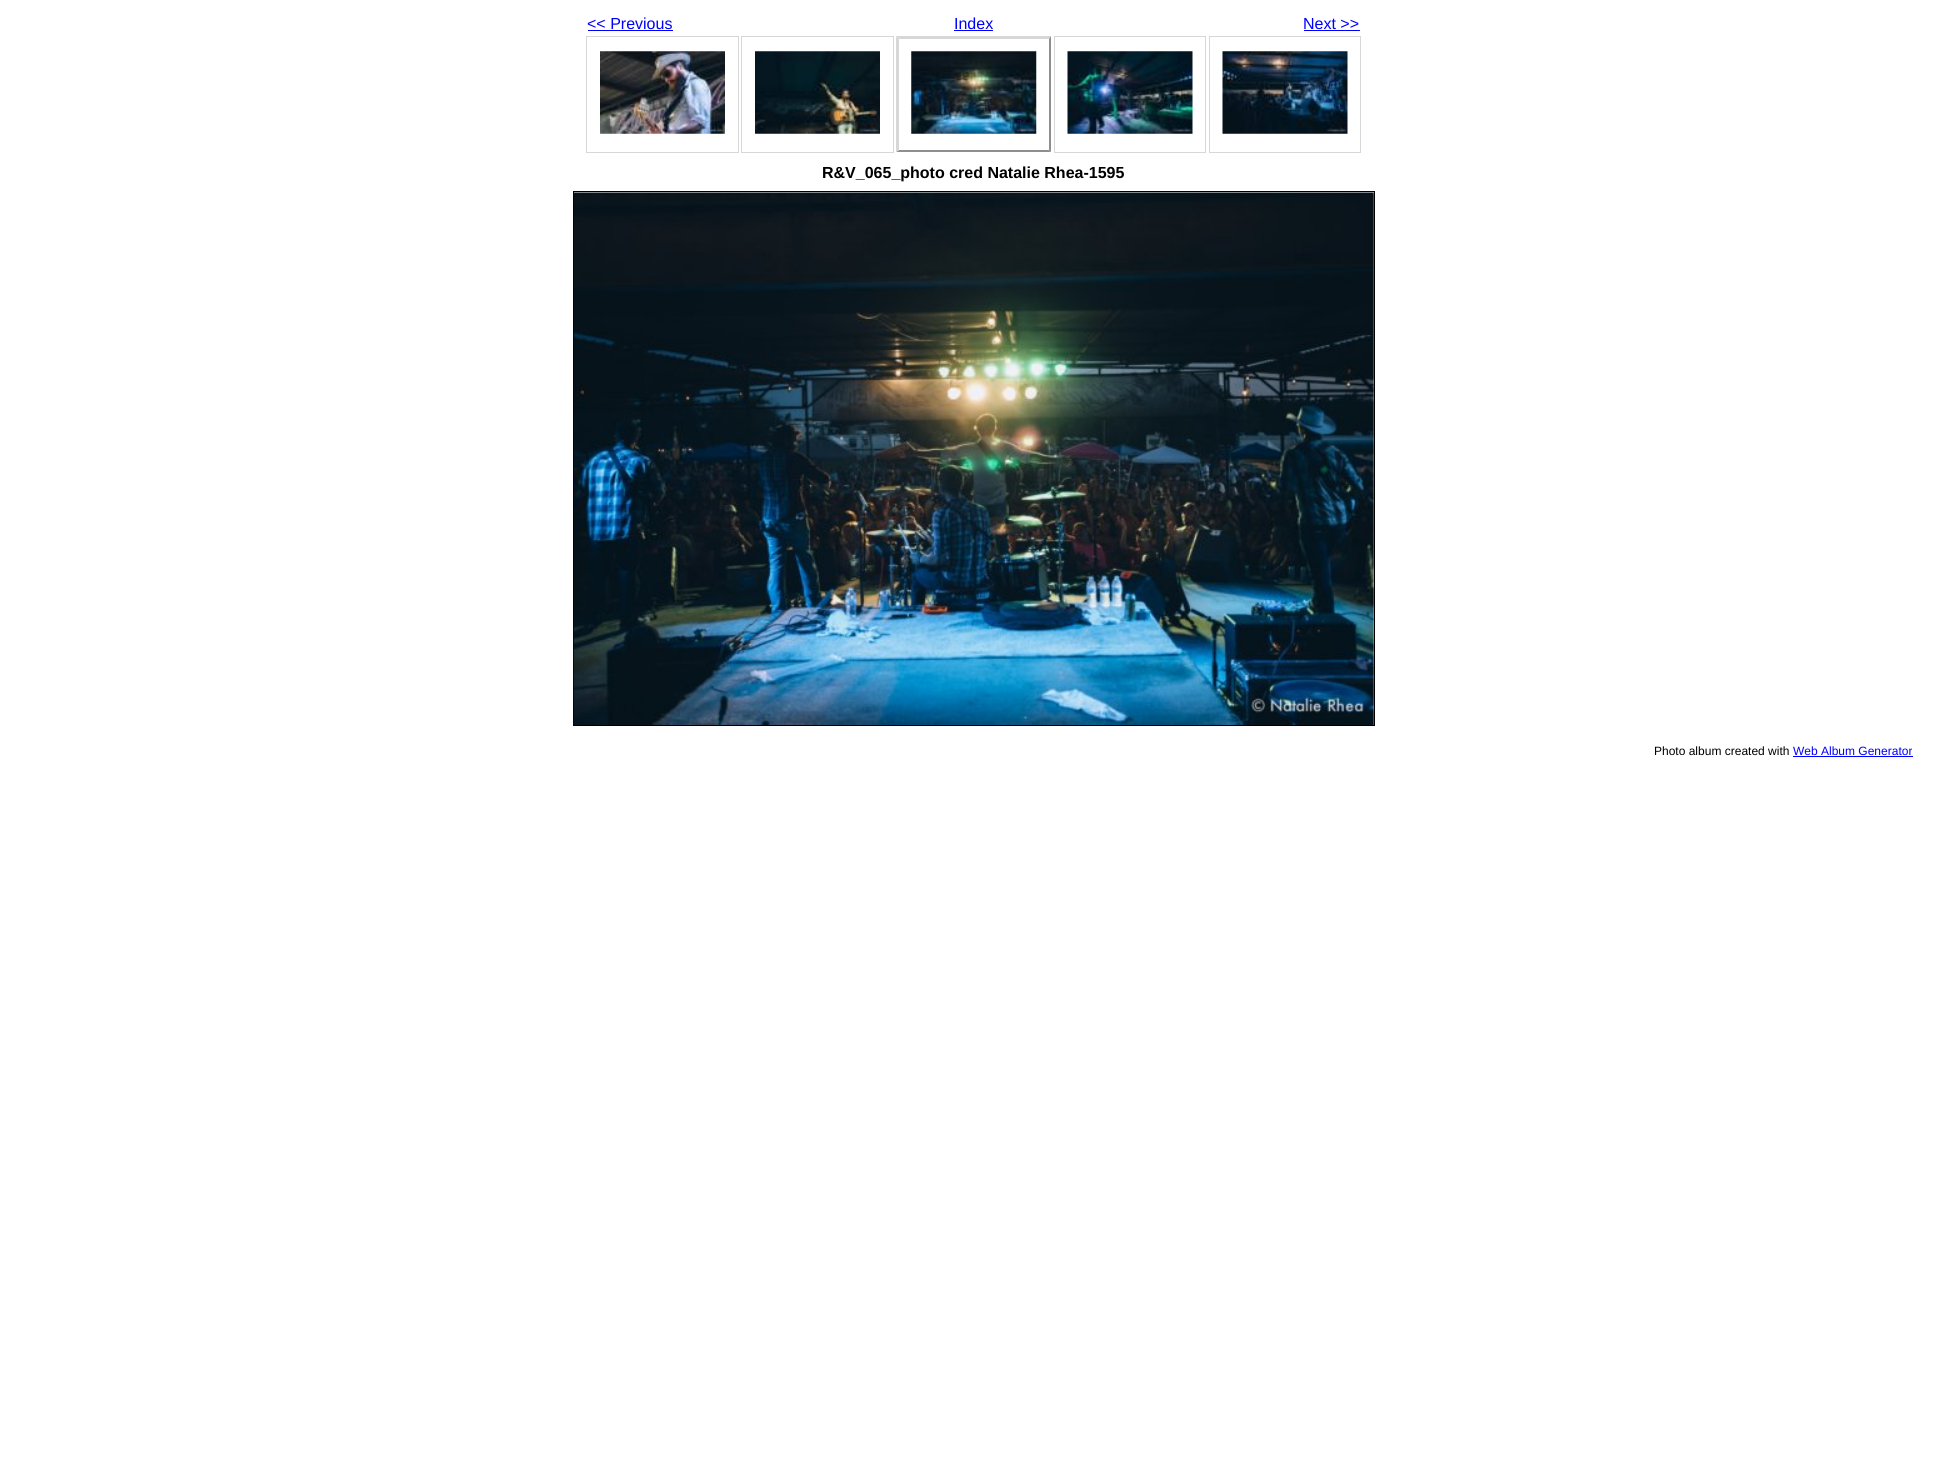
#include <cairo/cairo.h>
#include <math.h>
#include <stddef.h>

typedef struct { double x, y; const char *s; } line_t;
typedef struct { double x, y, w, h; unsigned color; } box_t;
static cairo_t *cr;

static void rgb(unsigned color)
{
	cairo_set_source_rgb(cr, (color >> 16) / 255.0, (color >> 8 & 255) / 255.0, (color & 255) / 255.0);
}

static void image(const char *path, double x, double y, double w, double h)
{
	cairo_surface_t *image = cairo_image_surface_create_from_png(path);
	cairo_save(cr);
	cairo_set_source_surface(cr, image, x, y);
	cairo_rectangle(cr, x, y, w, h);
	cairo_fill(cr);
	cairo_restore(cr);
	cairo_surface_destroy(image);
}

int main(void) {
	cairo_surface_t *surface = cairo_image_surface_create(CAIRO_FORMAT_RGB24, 1946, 1465);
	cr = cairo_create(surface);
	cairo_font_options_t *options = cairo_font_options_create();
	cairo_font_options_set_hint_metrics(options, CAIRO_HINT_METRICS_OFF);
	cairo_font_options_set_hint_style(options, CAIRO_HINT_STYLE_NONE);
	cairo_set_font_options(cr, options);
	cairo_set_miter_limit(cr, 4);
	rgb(0xffffff);
	cairo_paint(cr);
	{
		static const box_t items[] = {
			{588, 30, 85, 1, 0x0000ff},
			{954, 30, 39, 1, 0x0000ff},
			{1304, 30, 56, 1, 0x0000ff},
		};
		for (size_t i = 0; i < sizeof items / sizeof *items; i++) {
			rgb(items[i].color);
			cairo_rectangle(cr, items[i].x, items[i].y, items[i].w, items[i].h);
			cairo_fill(cr);
		}
	}
	cairo_rectangle(cr, 586.5, 36.5, 152, 116);
	rgb(0xd7d7d7);
	cairo_set_line_width(cr, 1);
	cairo_stroke(cr);
	image("img/1.png", 600, 51, 125, 83);
	cairo_rectangle(cr, 741.5, 36.5, 152, 116);
	cairo_stroke(cr);
	image("img/2.png", 755, 51, 125, 83);
	cairo_new_path(cr);
	cairo_move_to(cr, 896, 36);
	cairo_line_to(cr, 1051, 36);
	cairo_line_to(cr, 1049, 39);
	cairo_line_to(cr, 899, 39);
	cairo_close_path(cr);
	cairo_fill(cr);
	rgb(0x8f8f8f);
	cairo_new_path(cr);
	cairo_move_to(cr, 1051, 36);
	cairo_line_to(cr, 1051, 152);
	cairo_line_to(cr, 1049, 150);
	cairo_line_to(cr, 1049, 39);
	cairo_close_path(cr);
	cairo_fill(cr);
	cairo_new_path(cr);
	cairo_move_to(cr, 1051, 152);
	cairo_line_to(cr, 896, 152);
	cairo_line_to(cr, 899, 150);
	cairo_line_to(cr, 1049, 150);
	cairo_close_path(cr);
	cairo_fill(cr);
	rgb(0xd7d7d7);
	cairo_new_path(cr);
	cairo_move_to(cr, 896, 152);
	cairo_line_to(cr, 896, 36);
	cairo_line_to(cr, 899, 39);
	cairo_line_to(cr, 899, 150);
	cairo_close_path(cr);
	cairo_fill(cr);
	image("img/3.png", 911, 51, 126, 83);
	cairo_rectangle(cr, 1054.5, 36.5, 151, 116);
	cairo_stroke(cr);
	image("img/4.png", 1067, 51, 126, 83);
	cairo_rectangle(cr, 1209.5, 36.5, 151, 116);
	cairo_stroke(cr);
	image("img/5.png", 1222, 51, 126, 83);
	cairo_rectangle(cr, 573.5, 191.5, 801, 534);
	rgb(0x000000);
	cairo_stroke(cr);
	image("img/6.png", 573, 192, 801, 533);
	rgb(0x0000ff);
	cairo_rectangle(cr, 1793, 756, 120, 1);
	cairo_fill(cr);
	cairo_select_font_face(cr, "Liberation Sans", CAIRO_FONT_SLANT_NORMAL, CAIRO_FONT_WEIGHT_NORMAL);
	cairo_set_font_size(cr, 16);
	{
		static const line_t items[] = {
			{587, 29, "<< Previous"},
			{954, 29, "Index"},
			{1303, 29, "Next >>"},
		};
		for (size_t i = 0; i < sizeof items / sizeof *items; i++) {
			cairo_move_to(cr, items[i].x, items[i].y);
			cairo_show_text(cr, items[i].s);
		}
	}
	cairo_select_font_face(cr, "Liberation Sans", CAIRO_FONT_SLANT_NORMAL, CAIRO_FONT_WEIGHT_BOLD);
	rgb(0x000000);
	cairo_move_to(cr, 822, 178);
	cairo_show_text(cr, "R&V_065_photo cred Natalie Rhea-1595");
	cairo_select_font_face(cr, "Liberation Sans", CAIRO_FONT_SLANT_NORMAL, CAIRO_FONT_WEIGHT_NORMAL);
	cairo_set_font_size(cr, 12);
	cairo_move_to(cr, 1654, 755);
	cairo_show_text(cr, "Photo album created with");
	rgb(0x0000ff);
	cairo_move_to(cr, 1793, 755);
	cairo_show_text(cr, "Web Album Generator");
	cairo_surface_write_to_png(surface, "page.png");
	cairo_font_options_destroy(options);
	cairo_destroy(cr);
	cairo_surface_destroy(surface);
	return 0;
}
